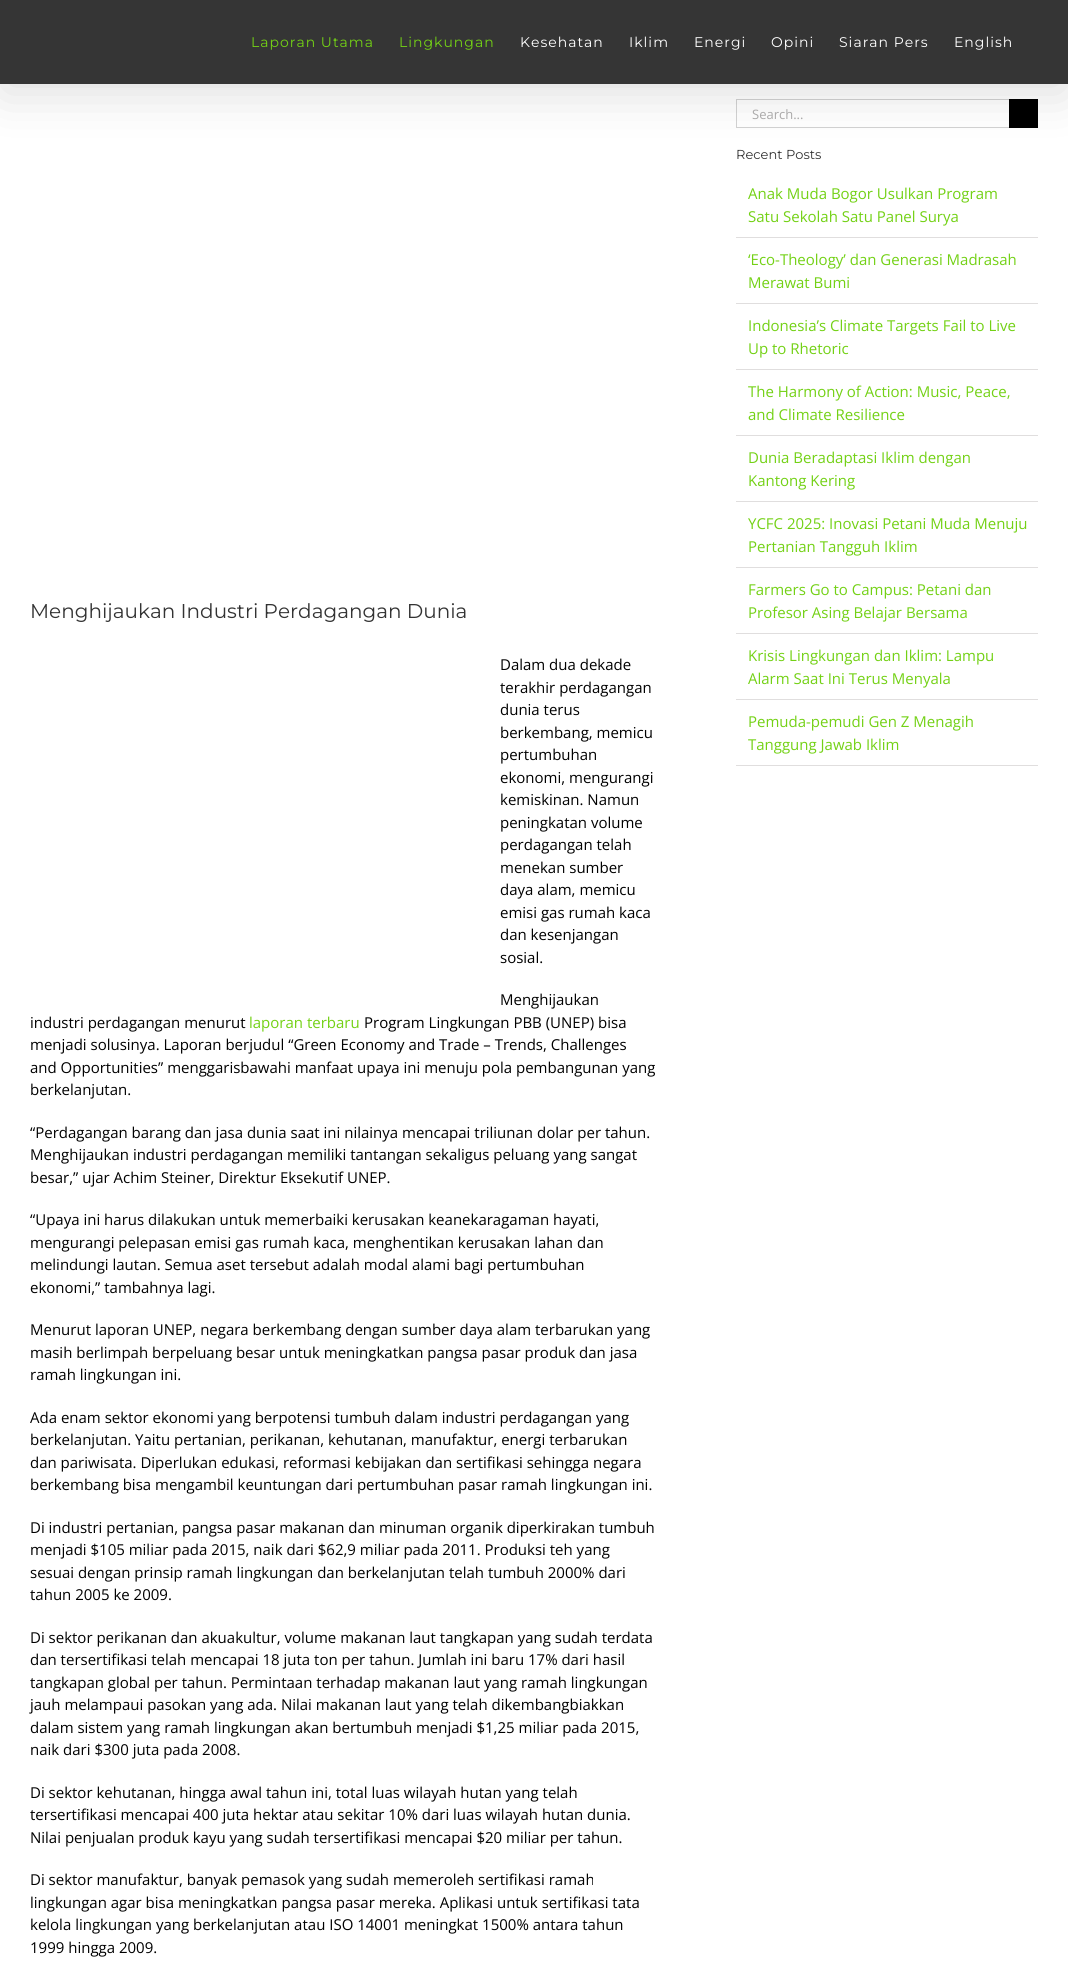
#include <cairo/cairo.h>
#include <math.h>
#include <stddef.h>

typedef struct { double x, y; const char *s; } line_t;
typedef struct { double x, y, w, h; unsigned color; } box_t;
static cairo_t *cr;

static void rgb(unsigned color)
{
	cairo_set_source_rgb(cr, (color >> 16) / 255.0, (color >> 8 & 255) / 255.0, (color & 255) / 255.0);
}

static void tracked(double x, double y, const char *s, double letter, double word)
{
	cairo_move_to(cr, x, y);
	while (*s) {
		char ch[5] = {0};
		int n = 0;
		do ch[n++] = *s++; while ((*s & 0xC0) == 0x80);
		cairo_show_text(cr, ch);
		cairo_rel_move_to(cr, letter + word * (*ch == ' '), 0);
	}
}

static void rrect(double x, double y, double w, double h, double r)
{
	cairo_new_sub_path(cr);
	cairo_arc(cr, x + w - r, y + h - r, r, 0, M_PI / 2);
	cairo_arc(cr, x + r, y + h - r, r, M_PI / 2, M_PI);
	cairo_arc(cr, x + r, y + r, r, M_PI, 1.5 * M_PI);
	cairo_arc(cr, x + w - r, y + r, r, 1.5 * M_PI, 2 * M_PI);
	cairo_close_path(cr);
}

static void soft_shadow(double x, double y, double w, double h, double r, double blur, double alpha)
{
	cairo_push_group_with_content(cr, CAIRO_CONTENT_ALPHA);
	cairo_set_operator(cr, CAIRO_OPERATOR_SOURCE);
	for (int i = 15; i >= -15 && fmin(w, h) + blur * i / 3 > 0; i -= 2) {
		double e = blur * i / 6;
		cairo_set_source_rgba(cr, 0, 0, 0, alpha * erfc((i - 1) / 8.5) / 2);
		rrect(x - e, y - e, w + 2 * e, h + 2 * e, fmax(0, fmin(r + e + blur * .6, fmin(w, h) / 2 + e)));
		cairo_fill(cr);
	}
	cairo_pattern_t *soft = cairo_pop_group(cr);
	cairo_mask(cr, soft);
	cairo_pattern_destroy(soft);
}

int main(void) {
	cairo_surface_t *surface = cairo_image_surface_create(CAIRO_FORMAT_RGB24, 1068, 1978);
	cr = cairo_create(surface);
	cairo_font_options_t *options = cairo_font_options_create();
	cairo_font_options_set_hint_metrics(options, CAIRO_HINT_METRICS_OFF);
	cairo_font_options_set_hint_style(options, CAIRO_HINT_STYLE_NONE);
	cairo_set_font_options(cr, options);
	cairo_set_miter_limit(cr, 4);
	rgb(0xffffff);
	cairo_paint(cr);
	{
		static const box_t items[] = {
			{736, 99, 273, 1, 0xd2d2d2},
			{736, 127, 273, 1, 0xd2d2d2},
			{736, 99, 1, 29, 0xd2d2d2},
			{1009, 99, 29, 29, 0x000000},
		};
		for (size_t i = 0; i < sizeof items / sizeof *items; i++) {
			rgb(items[i].color);
			cairo_rectangle(cr, items[i].x, items[i].y, items[i].w, items[i].h);
			cairo_fill(cr);
		}
	}
	rgb(0x000000);
	soft_shadow(2, 12, 1064, 80, 0, 25, 0.14);
	{
		static const box_t items[] = {
			{0, 0, 1068, 84, 0x353535},
			{736, 237, 302, 1, 0xe0dede},
			{736, 303, 302, 1, 0xe0dede},
			{736, 369, 302, 1, 0xe0dede},
			{736, 435, 302, 1, 0xe0dede},
			{736, 501, 302, 1, 0xe0dede},
			{736, 567, 302, 1, 0xe0dede},
			{736, 633, 302, 1, 0xe0dede},
			{736, 699, 302, 1, 0xe0dede},
			{736, 765, 302, 1, 0xe0dede},
		};
		for (size_t i = 0; i < sizeof items / sizeof *items; i++) {
			rgb(items[i].color);
			cairo_rectangle(cr, items[i].x, items[i].y, items[i].w, items[i].h);
			cairo_fill(cr);
		}
	}
	cairo_select_font_face(cr, "Montserrat Thin", CAIRO_FONT_SLANT_NORMAL, CAIRO_FONT_WEIGHT_NORMAL);
	cairo_set_font_size(cr, 14);
	rgb(0x73d115);
	tracked(251, 47, "Laporan Utama", 1, 0);
	tracked(399, 47, "Lingkungan", 1, 0);
	rgb(0xffffff);
	{
		static const line_t items[] = {
			{520, 47, "Kesehatan"},
			{629, 47, "Iklim"},
			{694, 47, "Energi"},
			{771, 47, "Opini"},
			{839, 47, "Siaran Pers"},
			{954, 47, "English"},
		};
		for (size_t i = 0; i < sizeof items / sizeof *items; i++) {
			tracked(items[i].x, items[i].y, items[i].s, 1, 0);
		}
	}
	cairo_select_font_face(cr, "Open Sans", CAIRO_FONT_SLANT_NORMAL, CAIRO_FONT_WEIGHT_NORMAL);
	cairo_set_font_size(cr, 13);
	rgb(0xaaa9a9);
	cairo_move_to(cr, 752, 119);
	cairo_show_text(cr, "Search...");
	cairo_select_font_face(cr, "Montserrat Thin", CAIRO_FONT_SLANT_NORMAL, CAIRO_FONT_WEIGHT_NORMAL);
	rgb(0x333333);
	cairo_move_to(cr, 736, 159);
	cairo_show_text(cr, "Recent Posts");
	cairo_select_font_face(cr, "Open Sans", CAIRO_FONT_SLANT_NORMAL, CAIRO_FONT_WEIGHT_NORMAL);
	cairo_set_font_size(cr, 15);
	rgb(0x73d115);
	{
		static const line_t items[] = {
			{748, 199, "Anak Muda Bogor Usulkan Program"},
			{748, 222, "Satu Sekolah Satu Panel Surya"},
			{748, 265, "‘Eco-Theology’ dan Generasi Madrasah"},
			{748, 288, "Merawat Bumi"},
			{748, 331, "Indonesia’s Climate Targets Fail to Live"},
			{748, 354, "Up to Rhetoric"},
			{748, 397, "The Harmony of Action: Music, Peace,"},
			{748, 420, "and Climate Resilience"},
			{748, 463, "Dunia Beradaptasi Iklim dengan"},
			{748, 486, "Kantong Kering"},
			{748, 529, "YCFC 2025: Inovasi Petani Muda Menuju"},
			{748, 552, "Pertanian Tangguh Iklim"},
			{748, 595, "Farmers Go to Campus: Petani dan"},
			{748, 618, "Profesor Asing Belajar Bersama"},
			{748, 661, "Krisis Lingkungan dan Iklim: Lampu"},
			{748, 684, "Alarm Saat Ini Terus Menyala"},
			{748, 727, "Pemuda-pemudi Gen Z Menagih"},
			{748, 750, "Tanggung Jawab Iklim"},
		};
		for (size_t i = 0; i < sizeof items / sizeof *items; i++) {
			cairo_move_to(cr, items[i].x, items[i].y);
			cairo_show_text(cr, items[i].s);
		}
	}
	cairo_select_font_face(cr, "Montserrat Thin", CAIRO_FONT_SLANT_NORMAL, CAIRO_FONT_WEIGHT_NORMAL);
	cairo_set_font_size(cr, 20);
	rgb(0x333333);
	cairo_move_to(cr, 30, 618);
	cairo_show_text(cr, "Menghijaukan Industri Perdagangan Dunia");
	cairo_select_font_face(cr, "Open Sans", CAIRO_FONT_SLANT_NORMAL, CAIRO_FONT_WEIGHT_NORMAL);
	cairo_set_font_size(cr, 15);
	rgb(0x000000);
	{
		static const line_t items[] = {
			{500, 670, "Dalam dua dekade"},
			{500, 693, "terakhir perdagangan"},
			{500, 715, "dunia terus"},
			{500, 738, "berkembang, memicu"},
			{500, 760, "pertumbuhan"},
			{500, 783, "ekonomi, mengurangi"},
			{500, 805, "kemiskinan. Namun"},
			{500, 828, "peningkatan volume"},
			{500, 850, "perdagangan telah"},
			{500, 873, "menekan sumber"},
			{500, 895, "daya alam, memicu"},
			{500, 918, "emisi gas rumah kaca"},
			{500, 940, "dan kesenjangan"},
			{500, 963, "sosial."},
			{500, 1005, "Menghijaukan"},
			{30, 1028, "industri perdagangan menurut"},
		};
		for (size_t i = 0; i < sizeof items / sizeof *items; i++) {
			cairo_move_to(cr, items[i].x, items[i].y);
			cairo_show_text(cr, items[i].s);
		}
	}
	rgb(0x73d115);
	cairo_move_to(cr, 249, 1028);
	cairo_show_text(cr, "laporan terbaru");
	rgb(0x000000);
	{
		static const line_t items[] = {
			{364, 1028, "Program Lingkungan PBB (UNEP) bisa"},
			{30, 1050, "menjadi solusinya. Laporan berjudul “Green Economy and Trade – Trends, Challenges"},
			{30, 1073, "and Opportunities” menggarisbawahi manfaat upaya ini menuju pola pembangunan yang"},
			{30, 1095, "berkelanjutan."},
			{30, 1138, "“Perdagangan barang dan jasa dunia saat ini nilainya mencapai triliunan dolar per tahun."},
			{30, 1160, "Menghijaukan industri perdagangan memiliki tantangan sekaligus peluang yang sangat"},
			{30, 1183, "besar,” ujar Achim Steiner, Direktur Eksekutif UNEP."},
			{30, 1225, "“Upaya ini harus dilakukan untuk memerbaiki kerusakan keanekaragaman hayati,"},
			{30, 1248, "mengurangi pelepasan emisi gas rumah kaca, menghentikan kerusakan lahan dan"},
			{30, 1270, "melindungi lautan. Semua aset tersebut adalah modal alami bagi pertumbuhan"},
			{30, 1293, "ekonomi,” tambahnya lagi."},
			{30, 1335, "Menurut laporan UNEP, negara berkembang dengan sumber daya alam terbarukan yang"},
			{30, 1358, "masih berlimpah berpeluang besar untuk meningkatkan pangsa pasar produk dan jasa"},
			{30, 1380, "ramah lingkungan ini."},
			{30, 1423, "Ada enam sektor ekonomi yang berpotensi tumbuh dalam industri perdagangan yang"},
			{30, 1445, "berkelanjutan. Yaitu pertanian, perikanan, kehutanan, manufaktur, energi terbarukan"},
			{30, 1468, "dan pariwisata. Diperlukan edukasi, reformasi kebijakan dan sertifikasi sehingga negara"},
			{30, 1490, "berkembang bisa mengambil keuntungan dari pertumbuhan pasar ramah lingkungan ini."},
			{30, 1533, "Di industri pertanian, pangsa pasar makanan dan minuman organik diperkirakan tumbuh"},
			{30, 1555, "menjadi $105 miliar pada 2015, naik dari $62,9 miliar pada 2011. Produksi teh yang"},
			{30, 1578, "sesuai dengan prinsip ramah lingkungan dan berkelanjutan telah tumbuh 2000% dari"},
			{30, 1600, "tahun 2005 ke 2009."},
			{30, 1643, "Di sektor perikanan dan akuakultur, volume makanan laut tangkapan yang sudah terdata"},
			{30, 1665, "dan tersertifikasi telah mencapai 18 juta ton per tahun. Jumlah ini baru 17% dari hasil"},
			{30, 1688, "tangkapan global per tahun. Permintaan terhadap makanan laut yang ramah lingkungan"},
			{30, 1710, "jauh melampaui pasokan yang ada. Nilai makanan laut yang telah dikembangbiakkan"},
			{30, 1733, "dalam sistem yang ramah lingkungan akan bertumbuh menjadi $1,25 miliar pada 2015,"},
			{30, 1755, "naik dari $300 juta pada 2008."},
			{30, 1798, "Di sektor kehutanan, hingga awal tahun ini, total luas wilayah hutan yang telah"},
			{30, 1820, "tersertifikasi mencapai 400 juta hektar atau sekitar 10% dari luas wilayah hutan dunia."},
			{30, 1843, "Nilai penjualan produk kayu yang sudah tersertifikasi mencapai $20 miliar per tahun."},
			{30, 1885, "Di sektor manufaktur, banyak pemasok yang sudah memeroleh sertifikasi ramah"},
			{30, 1908, "lingkungan agar bisa meningkatkan pangsa pasar mereka. Aplikasi untuk sertifikasi tata"},
			{30, 1930, "kelola lingkungan yang berkelanjutan atau ISO 14001 meningkat 1500% antara tahun"},
			{30, 1953, "1999 hingga 2009."},
		};
		for (size_t i = 0; i < sizeof items / sizeof *items; i++) {
			cairo_move_to(cr, items[i].x, items[i].y);
			cairo_show_text(cr, items[i].s);
		}
	}
	cairo_surface_write_to_png(surface, "page.png");
	cairo_font_options_destroy(options);
	cairo_destroy(cr);
	cairo_surface_destroy(surface);
	return 0;
}
